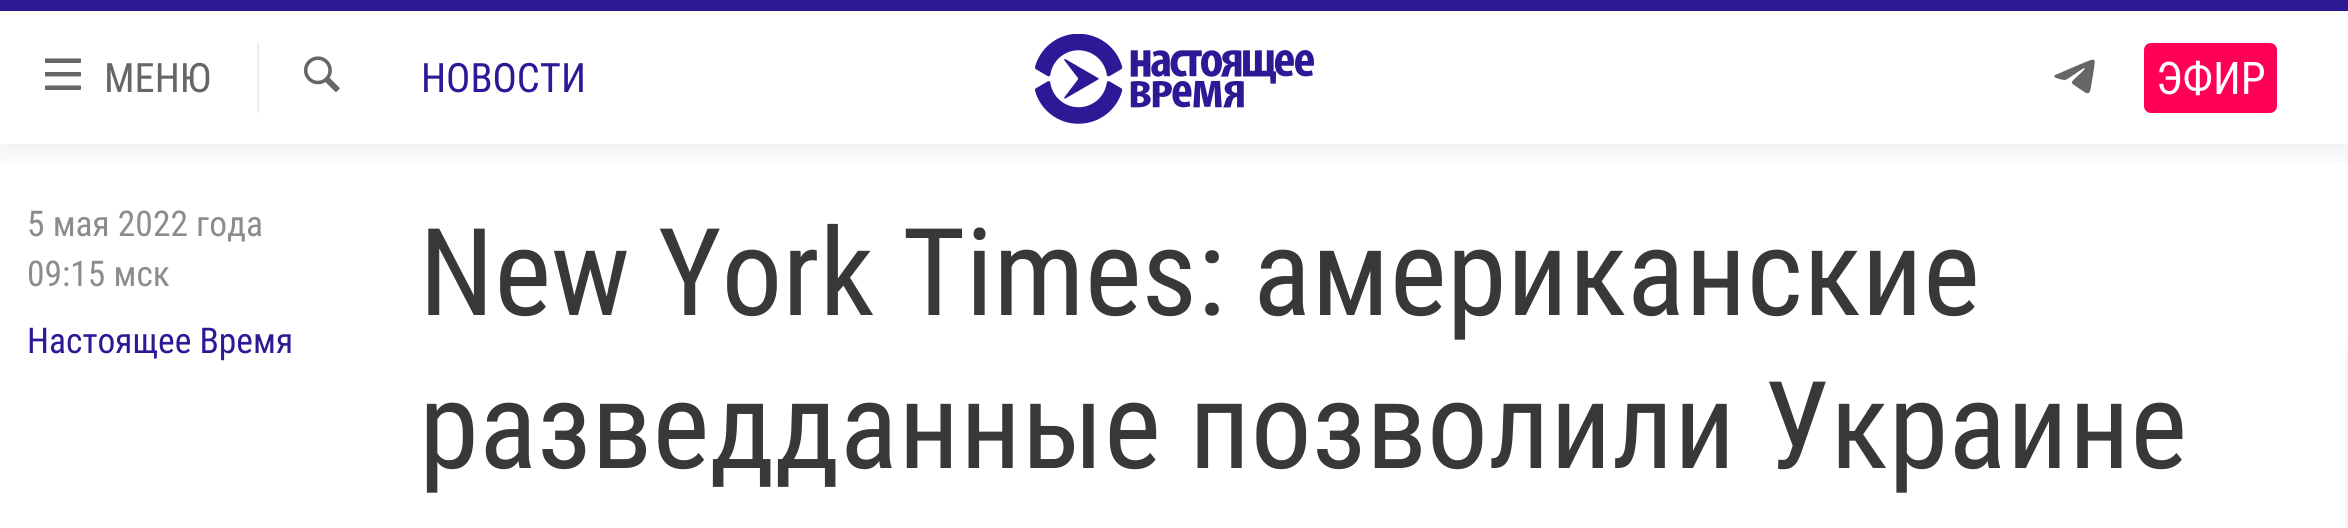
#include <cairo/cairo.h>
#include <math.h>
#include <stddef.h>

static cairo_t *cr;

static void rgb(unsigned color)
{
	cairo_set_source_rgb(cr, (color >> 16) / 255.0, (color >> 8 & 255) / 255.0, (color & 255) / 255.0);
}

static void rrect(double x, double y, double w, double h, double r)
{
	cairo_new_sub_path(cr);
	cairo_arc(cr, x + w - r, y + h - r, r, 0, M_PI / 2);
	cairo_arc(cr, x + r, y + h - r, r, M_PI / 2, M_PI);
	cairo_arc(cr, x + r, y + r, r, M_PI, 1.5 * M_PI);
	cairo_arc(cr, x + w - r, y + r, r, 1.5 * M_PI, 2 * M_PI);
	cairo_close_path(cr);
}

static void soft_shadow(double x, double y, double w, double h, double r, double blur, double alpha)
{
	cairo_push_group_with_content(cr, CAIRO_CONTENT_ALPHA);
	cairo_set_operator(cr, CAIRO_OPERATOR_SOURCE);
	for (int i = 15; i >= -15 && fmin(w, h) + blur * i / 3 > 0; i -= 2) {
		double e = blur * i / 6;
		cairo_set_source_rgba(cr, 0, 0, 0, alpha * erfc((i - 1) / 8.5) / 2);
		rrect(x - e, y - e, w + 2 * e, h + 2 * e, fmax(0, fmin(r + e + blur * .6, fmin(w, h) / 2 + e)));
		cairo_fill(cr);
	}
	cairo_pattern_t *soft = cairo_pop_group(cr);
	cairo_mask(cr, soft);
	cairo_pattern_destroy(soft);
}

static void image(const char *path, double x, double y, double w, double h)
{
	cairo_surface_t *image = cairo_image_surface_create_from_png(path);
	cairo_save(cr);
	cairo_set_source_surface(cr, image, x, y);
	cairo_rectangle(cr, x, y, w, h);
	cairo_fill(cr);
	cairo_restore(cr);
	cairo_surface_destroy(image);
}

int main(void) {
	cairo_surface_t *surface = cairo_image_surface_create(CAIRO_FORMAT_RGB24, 2348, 528);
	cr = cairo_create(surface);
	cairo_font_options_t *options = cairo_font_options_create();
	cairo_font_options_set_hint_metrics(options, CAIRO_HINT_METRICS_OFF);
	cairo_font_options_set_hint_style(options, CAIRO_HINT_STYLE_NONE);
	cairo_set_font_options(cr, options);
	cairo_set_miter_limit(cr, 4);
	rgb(0xffffff);
	cairo_paint(cr);
	cairo_save(cr);
	cairo_rectangle(cr, 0, 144, 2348, 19);
	cairo_clip(cr);
	rgb(0x000000);
	soft_shadow(0, 0, 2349, 144, 0, 22.5, 0.1);
	cairo_restore(cr);
	rgb(0x2d1996);
	cairo_rectangle(cr, 0, 0, 2348, 11);
	cairo_fill(cr);
	image("img/1.png", 45, 58, 36, 32);
	rgb(0xededed);
	cairo_rectangle(cr, 257, 43, 2, 70);
	cairo_fill(cr);
	image("img/2.png", 303, 56, 37, 37);
	image("img/3.png", 1035, 34, 279, 90);
	image("img/4.png", 2054, 59, 41, 35);
	rgb(0xff0055);
	rrect(2144, 43, 133, 70, 7);
	cairo_fill(cr);
	rgb(0x000000);
	soft_shadow(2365, 353, 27, 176, 11, 11, 0.85);
	cairo_select_font_face(cr, "Roboto Condensed", CAIRO_FONT_SLANT_NORMAL, CAIRO_FONT_WEIGHT_NORMAL);
	cairo_set_font_size(cr, 40.5);
	rgb(0x666666);
	cairo_move_to(cr, 104, 92);
	cairo_show_text(cr, "МЕНЮ");
	rgb(0x2d1996);
	cairo_move_to(cr, 421, 92);
	cairo_show_text(cr, "НОВОСТИ");
	cairo_set_font_size(cr, 45);
	rgb(0xffffff);
	cairo_move_to(cr, 2156, 94);
	cairo_show_text(cr, "ЭФИР");
	cairo_set_font_size(cr, 35.5);
	rgb(0x8c8c8c);
	cairo_move_to(cr, 27, 236);
	cairo_show_text(cr, "5 мая 2022 года");
	cairo_move_to(cr, 27, 286);
	cairo_show_text(cr, "09:15 мск");
	rgb(0x2d1996);
	cairo_move_to(cr, 27, 353);
	cairo_show_text(cr, "Настоящее Время");
	cairo_set_font_size(cr, 121.5);
	rgb(0x383838);
	cairo_move_to(cr, 419, 315);
	cairo_show_text(cr, "New York Times: американские");
	cairo_move_to(cr, 419, 468);
	cairo_show_text(cr, "разведданные позволили Украине");
	cairo_surface_write_to_png(surface, "page.png");
	cairo_font_options_destroy(options);
	cairo_destroy(cr);
	cairo_surface_destroy(surface);
	return 0;
}
